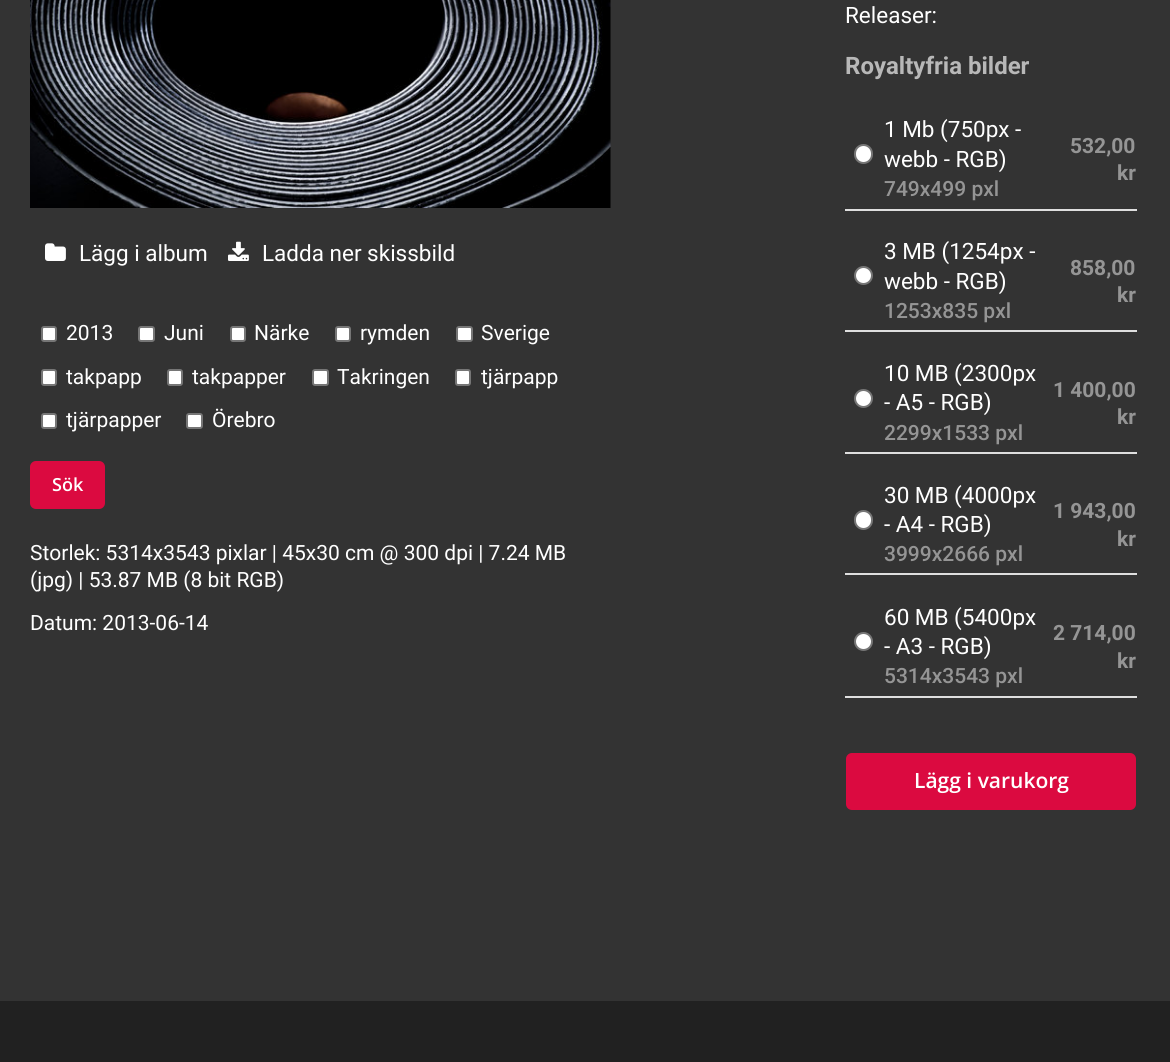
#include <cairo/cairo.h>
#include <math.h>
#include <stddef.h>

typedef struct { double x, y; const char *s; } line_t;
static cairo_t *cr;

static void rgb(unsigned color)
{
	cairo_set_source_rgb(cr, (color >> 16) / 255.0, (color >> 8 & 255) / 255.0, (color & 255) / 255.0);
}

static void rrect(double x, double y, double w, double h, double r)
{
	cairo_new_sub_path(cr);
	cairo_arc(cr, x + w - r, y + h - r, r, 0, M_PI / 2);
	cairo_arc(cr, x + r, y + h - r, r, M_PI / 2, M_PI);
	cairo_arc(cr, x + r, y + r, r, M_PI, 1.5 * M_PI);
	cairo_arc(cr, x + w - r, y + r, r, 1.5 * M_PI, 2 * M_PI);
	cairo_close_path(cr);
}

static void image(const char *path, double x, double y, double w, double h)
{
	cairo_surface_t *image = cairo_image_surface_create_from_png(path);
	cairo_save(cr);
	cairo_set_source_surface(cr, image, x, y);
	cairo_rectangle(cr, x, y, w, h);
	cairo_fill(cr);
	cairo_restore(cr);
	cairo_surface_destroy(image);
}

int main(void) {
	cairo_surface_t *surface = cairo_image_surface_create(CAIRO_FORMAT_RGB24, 1170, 1062);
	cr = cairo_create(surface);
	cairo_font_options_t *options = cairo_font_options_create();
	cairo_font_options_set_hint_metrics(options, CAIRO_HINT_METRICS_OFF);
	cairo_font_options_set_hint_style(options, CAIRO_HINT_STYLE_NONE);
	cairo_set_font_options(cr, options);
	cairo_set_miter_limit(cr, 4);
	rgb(0x212121);
	cairo_paint(cr);
	rgb(0x333333);
	cairo_rectangle(cr, 0, 0, 1170, 1001);
	cairo_fill(cr);
	image("img/1.png", 30, 0, 581, 208);
	image("img/2.png", 45, 243, 21, 18);
	image("img/3.png", 228, 241, 21, 20);
	rgb(0xffffff);
	rrect(42, 327, 14, 14, 2);
	cairo_fill_preserve(cr);
	rgb(0x767676);
	cairo_stroke(cr);
	rgb(0xffffff);
	rrect(139, 327, 15, 14, 2);
	cairo_fill_preserve(cr);
	rgb(0x767676);
	cairo_stroke(cr);
	rgb(0xffffff);
	rrect(231, 327, 14, 14, 2);
	cairo_fill_preserve(cr);
	rgb(0x767676);
	cairo_stroke(cr);
	rgb(0xffffff);
	rrect(336, 327, 14, 14, 2);
	cairo_fill_preserve(cr);
	rgb(0x767676);
	cairo_stroke(cr);
	rgb(0xffffff);
	rrect(457, 327, 15, 14, 2);
	cairo_fill_preserve(cr);
	rgb(0x767676);
	cairo_stroke(cr);
	rgb(0xffffff);
	rrect(42, 370, 14, 15, 2);
	cairo_fill_preserve(cr);
	rgb(0x767676);
	cairo_stroke(cr);
	rgb(0xffffff);
	rrect(168, 370, 14, 15, 2);
	cairo_fill_preserve(cr);
	rgb(0x767676);
	cairo_stroke(cr);
	rgb(0xffffff);
	rrect(313, 370, 15, 15, 2);
	cairo_fill_preserve(cr);
	rgb(0x767676);
	cairo_stroke(cr);
	rgb(0xffffff);
	rrect(456, 370, 14, 15, 2);
	cairo_fill_preserve(cr);
	rgb(0x767676);
	cairo_stroke(cr);
	rgb(0xffffff);
	rrect(42, 414, 14, 14, 2);
	cairo_fill_preserve(cr);
	rgb(0x767676);
	cairo_stroke(cr);
	rgb(0xffffff);
	rrect(187, 414, 15, 14, 2);
	cairo_fill_preserve(cr);
	rgb(0x767676);
	cairo_stroke(cr);
	rgb(0xdb0a40);
	rrect(31, 462, 73, 46, 5);
	cairo_fill_preserve(cr);
	cairo_stroke(cr);
	rgb(0xdfdfdf);
	cairo_rectangle(cr, 845, 209, 292, 2);
	cairo_fill(cr);
	rgb(0xffffff);
	rrect(855, 145, 17, 18, 8.5);
	cairo_fill_preserve(cr);
	rgb(0x767676);
	cairo_stroke(cr);
	rgb(0xdfdfdf);
	cairo_rectangle(cr, 845, 330, 292, 2);
	cairo_fill(cr);
	rgb(0xffffff);
	cairo_arc(cr, 863.5, 275.5, 8.5, 0, 2 * M_PI);
	cairo_fill_preserve(cr);
	rgb(0x767676);
	cairo_stroke(cr);
	rgb(0xdfdfdf);
	cairo_rectangle(cr, 845, 452, 292, 2);
	cairo_fill(cr);
	rgb(0xffffff);
	cairo_arc(cr, 863.5, 398.5, 8.5, 0, 2 * M_PI);
	cairo_fill_preserve(cr);
	rgb(0x767676);
	cairo_stroke(cr);
	rgb(0xdfdfdf);
	cairo_rectangle(cr, 845, 573, 292, 2);
	cairo_fill(cr);
	rgb(0xffffff);
	rrect(855, 511, 17, 18, 8.5);
	cairo_fill_preserve(cr);
	rgb(0x767676);
	cairo_stroke(cr);
	rgb(0xdfdfdf);
	cairo_rectangle(cr, 845, 696, 292, 2);
	cairo_fill(cr);
	rgb(0xffffff);
	cairo_arc(cr, 863.5, 641.5, 8.5, 0, 2 * M_PI);
	cairo_fill_preserve(cr);
	rgb(0x767676);
	cairo_stroke(cr);
	rgb(0xdb0a40);
	rrect(847, 754, 288, 55, 5);
	cairo_fill_preserve(cr);
	cairo_stroke(cr);
	cairo_select_font_face(cr, "Roboto", CAIRO_FONT_SLANT_NORMAL, CAIRO_FONT_WEIGHT_NORMAL);
	cairo_set_font_size(cr, 22.5);
	rgb(0xffffff);
	cairo_move_to(cr, 79, 261);
	cairo_show_text(cr, "Lägg i album");
	cairo_move_to(cr, 262, 261);
	cairo_show_text(cr, "Ladda ner skissbild");
	cairo_set_font_size(cr, 21);
	{
		static const line_t items[] = {
			{66, 340, "2013"},
			{164, 340, "Juni"},
			{254, 340, "Närke"},
			{360, 340, "rymden"},
			{481, 340, "Sverige"},
			{66, 384, "takpapp"},
			{192, 384, "takpapper"},
			{337, 384, "Takringen"},
			{481, 384, "tjärpapp"},
			{66, 427, "tjärpapper"},
			{212, 427, "Örebro"},
		};
		for (size_t i = 0; i < sizeof items / sizeof *items; i++) {
			cairo_move_to(cr, items[i].x, items[i].y);
			cairo_show_text(cr, items[i].s);
		}
	}
	cairo_select_font_face(cr, "Open Sans SemiBold", CAIRO_FONT_SLANT_NORMAL, CAIRO_FONT_WEIGHT_NORMAL);
	cairo_set_font_size(cr, 18);
	cairo_move_to(cr, 52, 491);
	cairo_show_text(cr, "Sök");
	cairo_select_font_face(cr, "Roboto", CAIRO_FONT_SLANT_NORMAL, CAIRO_FONT_WEIGHT_NORMAL);
	cairo_set_font_size(cr, 21);
	{
		static const line_t items[] = {
			{30, 560, "Storlek: 5314x3543 pixlar | 45x30 cm @ 300 dpi | 7.24 MB"},
			{30, 587, "(jpg) | 53.87 MB (8 bit RGB)"},
			{30, 630, "Datum: 2013-06-14"},
		};
		for (size_t i = 0; i < sizeof items / sizeof *items; i++) {
			cairo_move_to(cr, items[i].x, items[i].y);
			cairo_show_text(cr, items[i].s);
		}
	}
	cairo_set_font_size(cr, 22.5);
	cairo_move_to(cr, 845, 23);
	cairo_show_text(cr, "Releaser:");
	cairo_select_font_face(cr, "Roboto", CAIRO_FONT_SLANT_NORMAL, CAIRO_FONT_WEIGHT_BOLD);
	cairo_set_font_size(cr, 24);
	rgb(0xb8b8b8);
	cairo_move_to(cr, 845, 74);
	cairo_show_text(cr, "Royaltyfria bilder");
	cairo_select_font_face(cr, "Roboto", CAIRO_FONT_SLANT_NORMAL, CAIRO_FONT_WEIGHT_NORMAL);
	cairo_set_font_size(cr, 22.5);
	rgb(0xffffff);
	cairo_move_to(cr, 884, 137);
	cairo_show_text(cr, "1 Mb (750px -");
	cairo_move_to(cr, 884, 167);
	cairo_show_text(cr, "webb - RGB)");
	cairo_select_font_face(cr, "Roboto Medium", CAIRO_FONT_SLANT_NORMAL, CAIRO_FONT_WEIGHT_NORMAL);
	cairo_set_font_size(cr, 21);
	rgb(0x959595);
	cairo_move_to(cr, 884, 196);
	cairo_show_text(cr, "749x499 pxl");
	cairo_select_font_face(cr, "Roboto", CAIRO_FONT_SLANT_NORMAL, CAIRO_FONT_WEIGHT_BOLD);
	cairo_move_to(cr, 1070, 153);
	cairo_show_text(cr, "532,00");
	cairo_move_to(cr, 1117, 180);
	cairo_show_text(cr, "kr");
	cairo_select_font_face(cr, "Roboto", CAIRO_FONT_SLANT_NORMAL, CAIRO_FONT_WEIGHT_NORMAL);
	cairo_set_font_size(cr, 22.5);
	rgb(0xffffff);
	cairo_move_to(cr, 884, 259);
	cairo_show_text(cr, "3 MB (1254px -");
	cairo_move_to(cr, 884, 289);
	cairo_show_text(cr, "webb - RGB)");
	cairo_select_font_face(cr, "Roboto Medium", CAIRO_FONT_SLANT_NORMAL, CAIRO_FONT_WEIGHT_NORMAL);
	cairo_set_font_size(cr, 21);
	rgb(0x959595);
	cairo_move_to(cr, 884, 318);
	cairo_show_text(cr, "1253x835 pxl");
	cairo_select_font_face(cr, "Roboto", CAIRO_FONT_SLANT_NORMAL, CAIRO_FONT_WEIGHT_BOLD);
	cairo_move_to(cr, 1070, 275);
	cairo_show_text(cr, "858,00");
	cairo_move_to(cr, 1117, 302);
	cairo_show_text(cr, "kr");
	cairo_select_font_face(cr, "Roboto", CAIRO_FONT_SLANT_NORMAL, CAIRO_FONT_WEIGHT_NORMAL);
	cairo_set_font_size(cr, 22.5);
	rgb(0xffffff);
	cairo_move_to(cr, 884, 381);
	cairo_show_text(cr, "10 MB (2300px");
	cairo_move_to(cr, 884, 410);
	cairo_show_text(cr, "- A5 - RGB)");
	cairo_select_font_face(cr, "Roboto Medium", CAIRO_FONT_SLANT_NORMAL, CAIRO_FONT_WEIGHT_NORMAL);
	cairo_set_font_size(cr, 21);
	rgb(0x959595);
	cairo_move_to(cr, 884, 440);
	cairo_show_text(cr, "2299x1533 pxl");
	cairo_select_font_face(cr, "Roboto", CAIRO_FONT_SLANT_NORMAL, CAIRO_FONT_WEIGHT_BOLD);
	cairo_move_to(cr, 1053, 397);
	cairo_show_text(cr, "1 400,00");
	cairo_move_to(cr, 1117, 424);
	cairo_show_text(cr, "kr");
	cairo_select_font_face(cr, "Roboto", CAIRO_FONT_SLANT_NORMAL, CAIRO_FONT_WEIGHT_NORMAL);
	cairo_set_font_size(cr, 22.5);
	rgb(0xffffff);
	cairo_move_to(cr, 884, 503);
	cairo_show_text(cr, "30 MB (4000px");
	cairo_move_to(cr, 884, 532);
	cairo_show_text(cr, "- A4 - RGB)");
	cairo_select_font_face(cr, "Roboto Medium", CAIRO_FONT_SLANT_NORMAL, CAIRO_FONT_WEIGHT_NORMAL);
	cairo_set_font_size(cr, 21);
	rgb(0x959595);
	cairo_move_to(cr, 884, 561);
	cairo_show_text(cr, "3999x2666 pxl");
	cairo_select_font_face(cr, "Roboto", CAIRO_FONT_SLANT_NORMAL, CAIRO_FONT_WEIGHT_BOLD);
	cairo_move_to(cr, 1053, 518);
	cairo_show_text(cr, "1 943,00");
	cairo_move_to(cr, 1117, 546);
	cairo_show_text(cr, "kr");
	cairo_select_font_face(cr, "Roboto", CAIRO_FONT_SLANT_NORMAL, CAIRO_FONT_WEIGHT_NORMAL);
	cairo_set_font_size(cr, 22.5);
	rgb(0xffffff);
	cairo_move_to(cr, 884, 625);
	cairo_show_text(cr, "60 MB (5400px");
	cairo_move_to(cr, 884, 654);
	cairo_show_text(cr, "- A3 - RGB)");
	cairo_select_font_face(cr, "Roboto Medium", CAIRO_FONT_SLANT_NORMAL, CAIRO_FONT_WEIGHT_NORMAL);
	cairo_set_font_size(cr, 21);
	rgb(0x959595);
	cairo_move_to(cr, 884, 683);
	cairo_show_text(cr, "5314x3543 pxl");
	cairo_select_font_face(cr, "Roboto", CAIRO_FONT_SLANT_NORMAL, CAIRO_FONT_WEIGHT_BOLD);
	cairo_move_to(cr, 1053, 640);
	cairo_show_text(cr, "2 714,00");
	cairo_move_to(cr, 1117, 668);
	cairo_show_text(cr, "kr");
	cairo_select_font_face(cr, "Open Sans SemiBold", CAIRO_FONT_SLANT_NORMAL, CAIRO_FONT_WEIGHT_NORMAL);
	rgb(0xffffff);
	cairo_move_to(cr, 914, 788);
	cairo_show_text(cr, "Lägg i varukorg");
	cairo_surface_write_to_png(surface, "page.png");
	cairo_font_options_destroy(options);
	cairo_destroy(cr);
	cairo_surface_destroy(surface);
	return 0;
}
